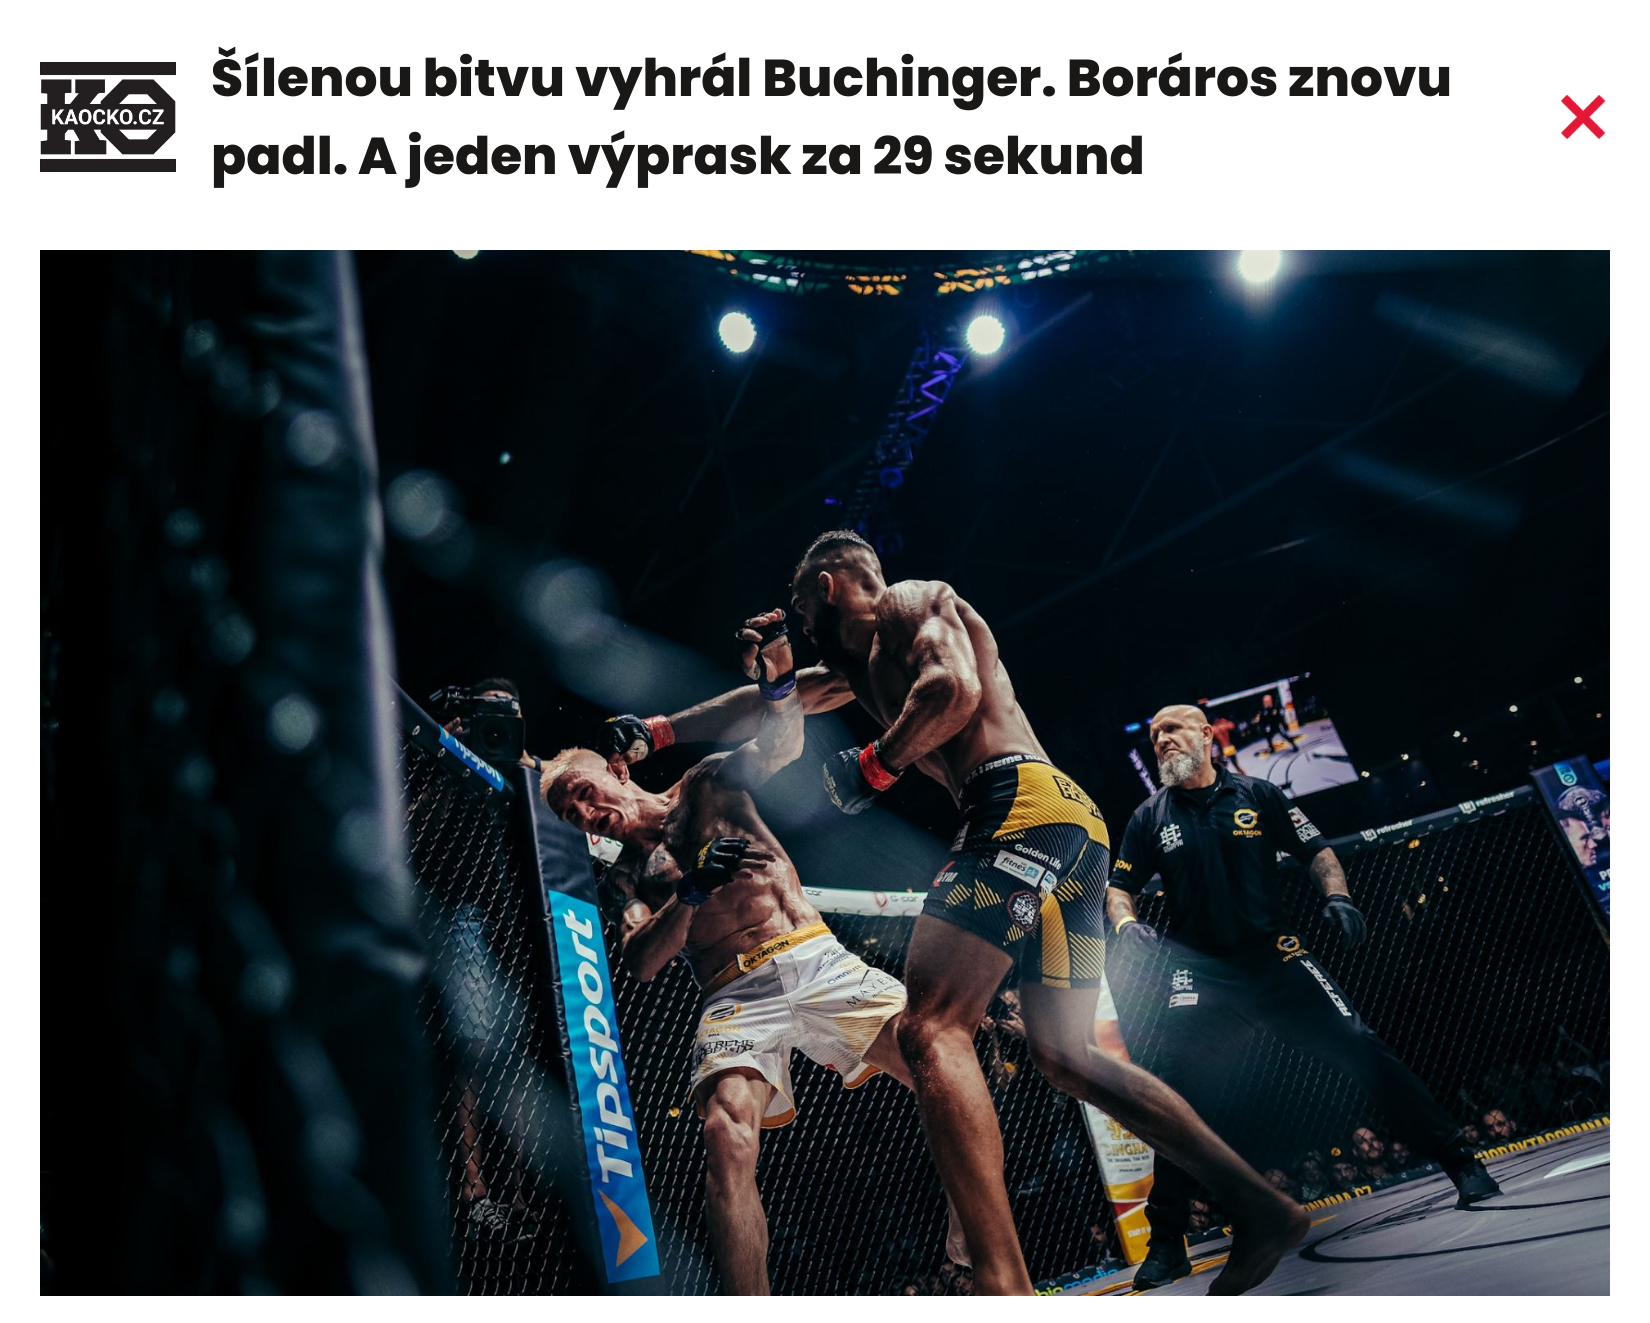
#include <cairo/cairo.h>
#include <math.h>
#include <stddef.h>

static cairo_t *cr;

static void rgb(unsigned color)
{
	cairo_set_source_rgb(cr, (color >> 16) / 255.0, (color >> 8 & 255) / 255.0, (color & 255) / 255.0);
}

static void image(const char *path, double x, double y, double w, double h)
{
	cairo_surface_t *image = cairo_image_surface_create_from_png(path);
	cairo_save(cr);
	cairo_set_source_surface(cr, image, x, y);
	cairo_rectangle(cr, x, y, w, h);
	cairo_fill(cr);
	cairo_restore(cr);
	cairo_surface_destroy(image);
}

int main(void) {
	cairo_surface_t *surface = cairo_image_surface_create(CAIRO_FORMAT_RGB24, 1650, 1323);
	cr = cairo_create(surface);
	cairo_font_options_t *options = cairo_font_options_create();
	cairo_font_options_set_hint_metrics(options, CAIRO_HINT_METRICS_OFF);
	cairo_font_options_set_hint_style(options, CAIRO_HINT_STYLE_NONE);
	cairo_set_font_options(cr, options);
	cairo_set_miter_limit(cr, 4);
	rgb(0xffffff);
	cairo_paint(cr);
	image("img/1.png", 40, 62, 136, 110);
	image("img/2.png", 1561, 94, 45, 45);
	image("img/3.png", 40, 250, 1570, 1046);
	cairo_select_font_face(cr, "Poppins ExtraBold", CAIRO_FONT_SLANT_NORMAL, CAIRO_FONT_WEIGHT_NORMAL);
	cairo_set_font_size(cr, 51.8);
	rgb(0x191817);
	cairo_move_to(cr, 211, 96);
	cairo_show_text(cr, "Šílenou bitvu vyhrál Buchinger. Boráros znovu");
	cairo_move_to(cr, 211, 174);
	cairo_show_text(cr, "padl. A jeden výprask za 29 sekund");
	cairo_surface_write_to_png(surface, "page.png");
	cairo_font_options_destroy(options);
	cairo_destroy(cr);
	cairo_surface_destroy(surface);
	return 0;
}
